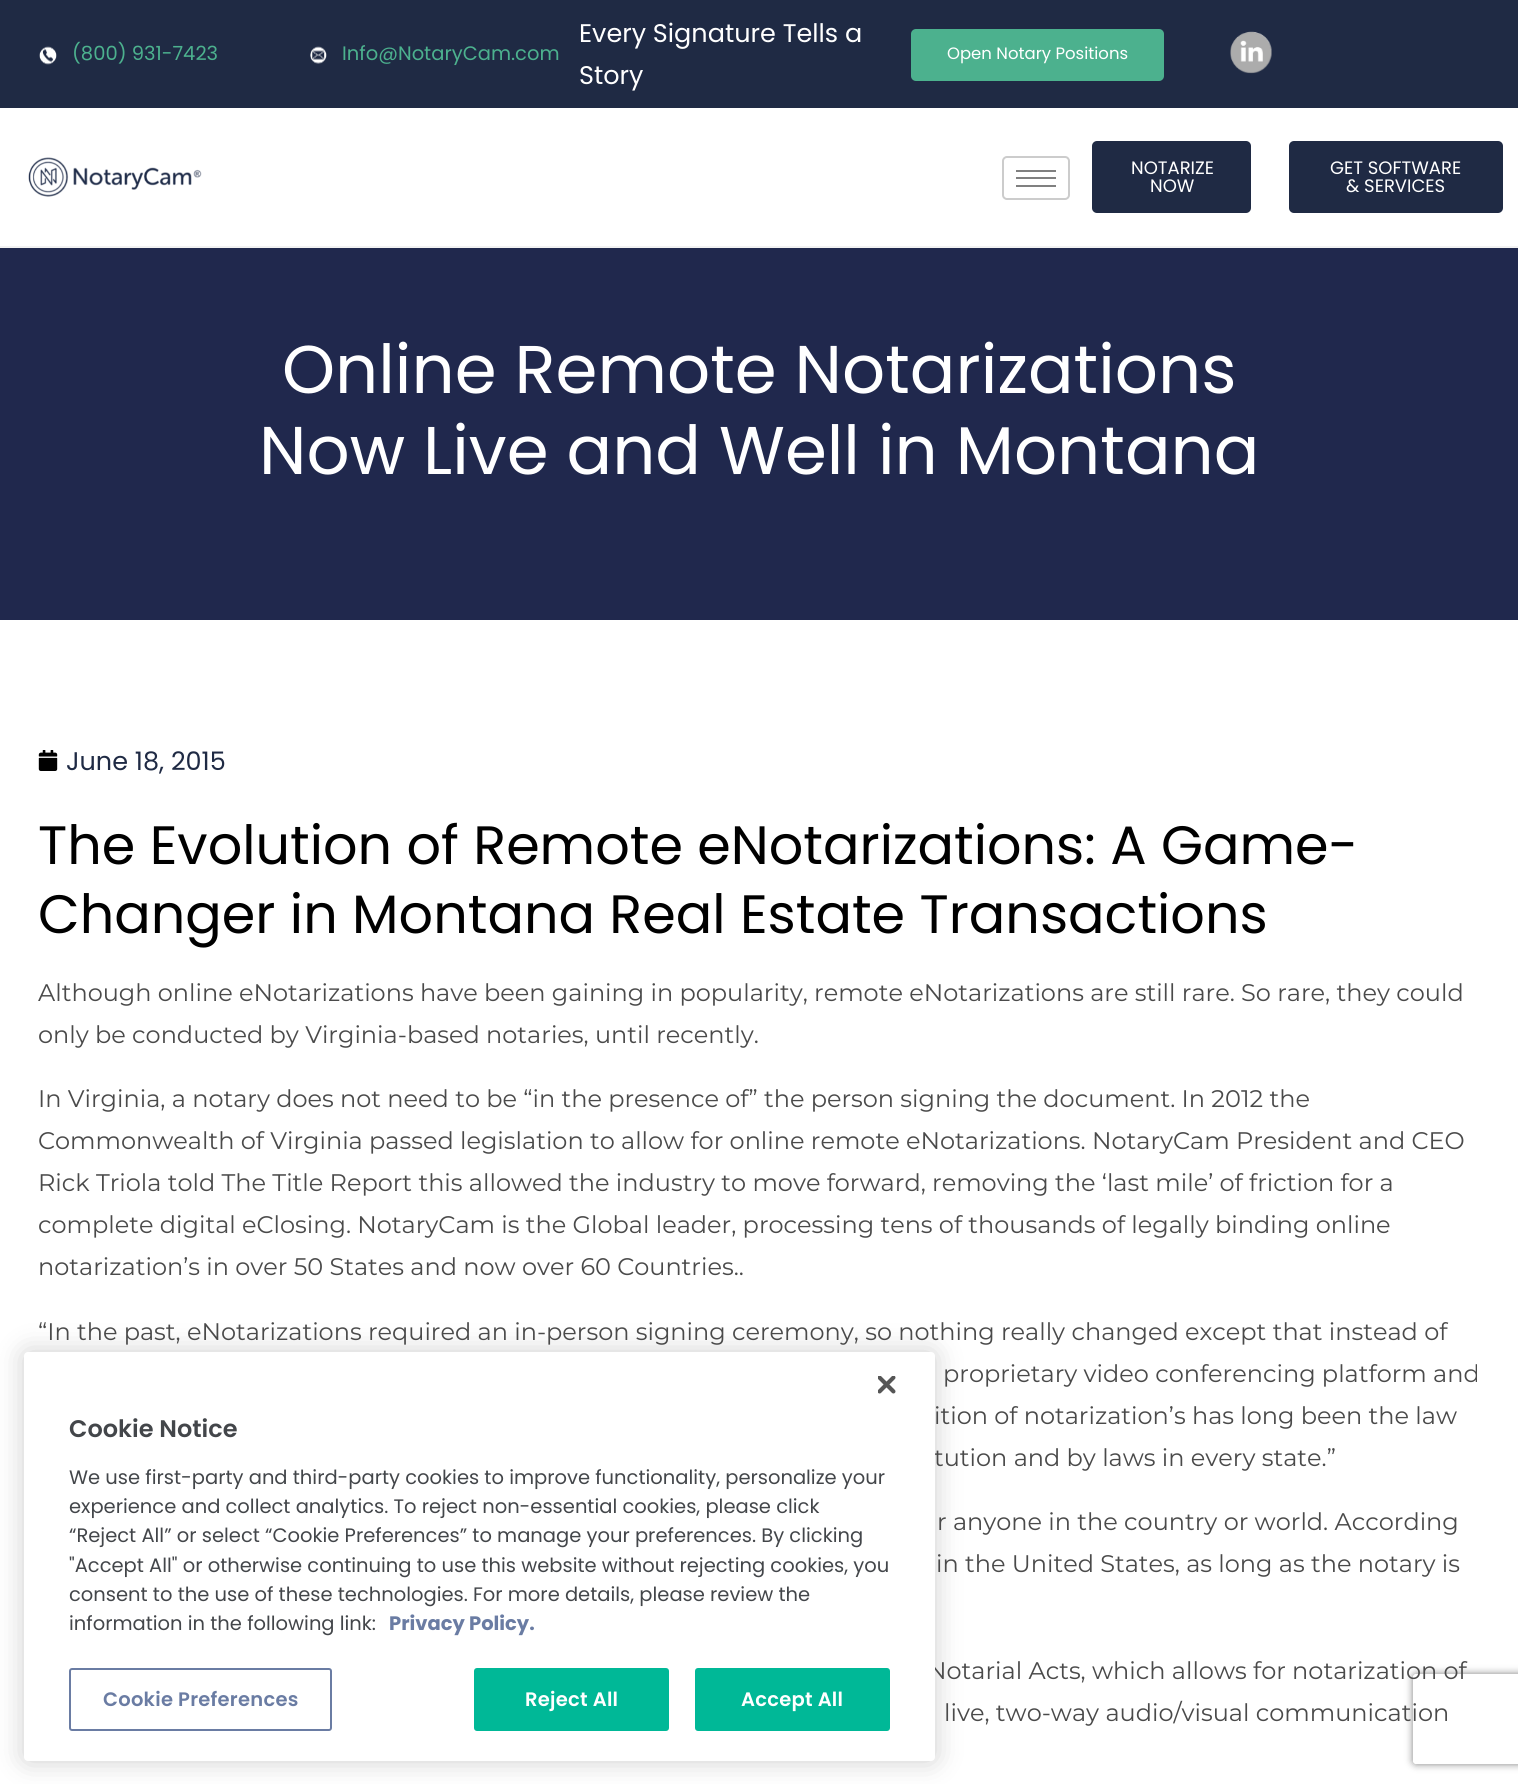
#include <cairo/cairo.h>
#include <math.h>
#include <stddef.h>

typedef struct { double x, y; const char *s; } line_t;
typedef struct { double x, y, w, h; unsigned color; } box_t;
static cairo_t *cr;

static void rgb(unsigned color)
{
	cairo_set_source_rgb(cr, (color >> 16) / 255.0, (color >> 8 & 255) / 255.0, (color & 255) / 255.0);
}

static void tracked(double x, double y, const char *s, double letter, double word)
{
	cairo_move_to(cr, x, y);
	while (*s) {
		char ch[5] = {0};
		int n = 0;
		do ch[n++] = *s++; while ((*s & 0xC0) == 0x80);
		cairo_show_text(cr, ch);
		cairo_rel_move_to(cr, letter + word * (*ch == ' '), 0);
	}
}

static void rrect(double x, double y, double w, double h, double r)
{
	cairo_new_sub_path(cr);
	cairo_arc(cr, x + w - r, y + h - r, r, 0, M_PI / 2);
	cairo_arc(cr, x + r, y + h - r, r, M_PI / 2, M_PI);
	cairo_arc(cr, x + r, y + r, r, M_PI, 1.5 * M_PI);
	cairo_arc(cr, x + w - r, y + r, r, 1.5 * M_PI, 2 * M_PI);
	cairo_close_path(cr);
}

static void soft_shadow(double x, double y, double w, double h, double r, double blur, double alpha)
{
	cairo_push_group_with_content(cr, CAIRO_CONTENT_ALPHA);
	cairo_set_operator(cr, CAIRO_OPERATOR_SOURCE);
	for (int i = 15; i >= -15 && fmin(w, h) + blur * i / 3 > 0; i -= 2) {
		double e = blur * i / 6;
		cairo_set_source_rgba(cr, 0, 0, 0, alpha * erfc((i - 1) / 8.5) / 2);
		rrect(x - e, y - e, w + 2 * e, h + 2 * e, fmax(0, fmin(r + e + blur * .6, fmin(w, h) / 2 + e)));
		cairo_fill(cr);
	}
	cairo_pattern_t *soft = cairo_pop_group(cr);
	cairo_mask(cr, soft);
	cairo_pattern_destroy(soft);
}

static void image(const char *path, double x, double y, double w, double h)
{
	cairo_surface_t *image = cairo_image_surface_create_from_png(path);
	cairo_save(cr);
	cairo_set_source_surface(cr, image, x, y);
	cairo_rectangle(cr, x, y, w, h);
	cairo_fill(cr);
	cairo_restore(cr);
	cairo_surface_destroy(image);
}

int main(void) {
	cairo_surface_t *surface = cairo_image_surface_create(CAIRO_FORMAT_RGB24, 1518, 1784);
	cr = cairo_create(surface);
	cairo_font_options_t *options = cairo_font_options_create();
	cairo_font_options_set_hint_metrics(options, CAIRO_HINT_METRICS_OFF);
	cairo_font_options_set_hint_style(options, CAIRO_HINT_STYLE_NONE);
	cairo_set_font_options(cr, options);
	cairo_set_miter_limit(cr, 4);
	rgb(0xffffff);
	cairo_paint(cr);
	rgb(0xf2f2f2);
	cairo_rectangle(cr, 0, 246, 1518, 2);
	cairo_fill(cr);
	rgb(0x1f2a44);
	cairo_rectangle(cr, 0, 0, 1518, 108);
	cairo_fill(cr);
	image("img/1.png", 39, 46, 18, 19);
	image("img/2.png", 310, 46, 17, 18);
	rgb(0x4cb18e);
	rrect(911, 29, 253, 52, 5);
	cairo_fill(cr);
	image("img/3.png", 1230, 31, 42, 43);
	image("img/4.png", 28, 157, 174, 40);
	rrect(1003, 157, 66, 42, 4);
	rgb(0xcccccc);
	cairo_stroke(cr);
	{
		static const box_t items[] = {
			{1016, 170, 40, 2, 0x808080},
			{1016, 177, 40, 2, 0x808080},
			{1016, 185, 40, 2, 0x808080},
		};
		for (size_t i = 0; i < sizeof items / sizeof *items; i++) {
			rgb(items[i].color);
			cairo_rectangle(cr, items[i].x, items[i].y, items[i].w, items[i].h);
			cairo_fill(cr);
		}
	}
	rgb(0x1f2a44);
	rrect(1092, 141, 159, 72, 5);
	cairo_fill(cr);
	rrect(1289, 141, 214, 72, 5);
	cairo_fill(cr);
	rgb(0x20284d);
	cairo_rectangle(cr, 0, 248, 1518, 372);
	cairo_fill(cr);
	image("img/5.png", 38, 750, 20, 21);
	rgb(0x000000);
	soft_shadow(24, 1352, 911, 409, 4, 13.5, 0.2);
	cairo_save(cr);
	cairo_set_fill_rule(cr, CAIRO_FILL_RULE_EVEN_ODD);
	cairo_new_path(cr);
	cairo_move_to(cr, 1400, 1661);
	cairo_line_to(cr, 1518, 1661);
	cairo_line_to(cr, 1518, 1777);
	cairo_line_to(cr, 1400, 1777);
	cairo_close_path(cr);
	cairo_move_to(cr, 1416, 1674);
	cairo_line_to(cr, 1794, 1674);
	cairo_curve_to(cr, 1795.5, 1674, 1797, 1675.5, 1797, 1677);
	cairo_line_to(cr, 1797, 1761);
	cairo_curve_to(cr, 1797, 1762.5, 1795.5, 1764, 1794, 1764);
	cairo_line_to(cr, 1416, 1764);
	cairo_curve_to(cr, 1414.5, 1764, 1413, 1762.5, 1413, 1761);
	cairo_line_to(cr, 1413, 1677);
	cairo_curve_to(cr, 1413, 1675.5, 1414.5, 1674, 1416, 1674);
	cairo_close_path(cr);
	cairo_clip(cr);
	rgb(0x808080);
	soft_shadow(1413, 1674, 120, 90, 3, 4, 1);
	cairo_restore(cr);
	cairo_select_font_face(cr, "Poppins", CAIRO_FONT_SLANT_NORMAL, CAIRO_FONT_WEIGHT_NORMAL);
	cairo_set_font_size(cr, 19.5);
	rgb(0x4cb18e);
	cairo_move_to(cr, 72, 60);
	cairo_show_text(cr, "(800) 931-7423");
	cairo_move_to(cr, 342, 60);
	cairo_show_text(cr, "Info@NotaryCam.com");
	cairo_set_font_size(cr, 25.5);
	rgb(0xffffff);
	cairo_move_to(cr, 579, 42);
	cairo_show_text(cr, "Every Signature Tells a");
	cairo_move_to(cr, 579, 84);
	cairo_show_text(cr, "Story");
	cairo_set_font_size(cr, 16.5);
	cairo_move_to(cr, 947, 59);
	cairo_show_text(cr, "Open Notary Positions");
	cairo_set_font_size(cr, 18);
	{
		static const line_t items[] = {
			{1131, 174, "NOTARIZE"},
			{1150, 192, "NOW"},
			{1330, 174, "GET SOFTWARE"},
			{1346, 192, "& SERVICES"},
		};
		for (size_t i = 0; i < sizeof items / sizeof *items; i++) {
			cairo_move_to(cr, items[i].x, items[i].y);
			cairo_show_text(cr, items[i].s);
		}
	}
	cairo_set_font_size(cr, 67.5);
	cairo_move_to(cr, 282, 393);
	cairo_show_text(cr, "Online Remote Notarizations");
	cairo_move_to(cr, 259, 474);
	cairo_show_text(cr, "Now Live and Well in Montana");
	cairo_set_font_size(cr, 25.5);
	rgb(0x1f2a44);
	cairo_move_to(cr, 66, 770);
	cairo_show_text(cr, "June 18, 2015");
	cairo_set_font_size(cr, 54);
	rgb(0x000000);
	cairo_move_to(cr, 38, 864);
	cairo_show_text(cr, "The Evolution of Remote eNotarizations: A Game-");
	cairo_move_to(cr, 38, 933);
	cairo_show_text(cr, "Changer in Montana Real Estate Transactions");
	cairo_select_font_face(cr, "Montserrat", CAIRO_FONT_SLANT_NORMAL, CAIRO_FONT_WEIGHT_NORMAL);
	cairo_set_font_size(cr, 24);
	rgb(0x4a4a4a);
	{
		static const line_t items[] = {
			{38, 1001, "Although online eNotarizations have been gaining in popularity, remote eNotarizations are still rare. So rare, they could"},
			{38, 1043, "only be conducted by Virginia-based notaries, until recently."},
			{38, 1107, "In Virginia, a notary does not need to be “in the presence of” the person signing the document. In 2012 the"},
			{38, 1149, "Commonwealth of Virginia passed legislation to allow for online remote eNotarizations. NotaryCam President and CEO"},
			{38, 1191, "Rick Triola told The Title Report this allowed the industry to move forward, removing the ‘last mile’ of friction for a"},
			{38, 1233, "complete digital eClosing. NotaryCam is the Global leader, processing tens of thousands of legally binding online"},
			{38, 1275, "notarization’s in over 50 States and now over 60 Countries.."},
			{38, 1340, "“In the past, eNotarizations required an in-person signing ceremony, so nothing really changed except that instead of"},
			{943, 1382, "proprietary video conferencing platform and"},
			{934, 1424, "ition of notarization’s has long been the law"},
			{934, 1466, "tution and by laws in every state.”"},
			{937, 1530, "r anyone in the country or world. According"},
			{936, 1572, "in the United States, as long as the notary is"},
			{927, 1679, "Notarial Acts, which allows for notarization of"},
			{944, 1721, "live, two-way audio/visual communication"},
		};
		for (size_t i = 0; i < sizeof items / sizeof *items; i++) {
			cairo_move_to(cr, items[i].x, items[i].y);
			cairo_show_text(cr, items[i].s);
		}
	}
	rgb(0xffffff);
	rrect(24, 1352, 911, 409, 4);
	cairo_fill(cr);
	image("img/6.png", 878, 1376, 18, 18);
	cairo_select_font_face(cr, "Poppins SemiBold", CAIRO_FONT_SLANT_NORMAL, CAIRO_FONT_WEIGHT_NORMAL);
	rgb(0x43464a);
	cairo_move_to(cr, 69, 1437);
	cairo_show_text(cr, "Cookie Notice");
	cairo_select_font_face(cr, "Poppins", CAIRO_FONT_SLANT_NORMAL, CAIRO_FONT_WEIGHT_NORMAL);
	cairo_set_font_size(cr, 19.5);
	{
		static const line_t items[] = {
			{69, 1484, "We use first-party and third-party cookies to improve functionality, personalize your"},
			{69, 1513, "experience and collect analytics. To reject non-essential cookies, please click"},
			{69, 1542, "“Reject All” or select “Cookie Preferences” to manage your preferences. By clicking"},
			{69, 1572, "\"Accept All\" or otherwise continuing to use this website without rejecting cookies, you"},
			{69, 1601, "consent to the use of these technologies. For more details, please review the"},
			{69, 1630, "information in the following link:"},
		};
		for (size_t i = 0; i < sizeof items / sizeof *items; i++) {
			cairo_move_to(cr, items[i].x, items[i].y);
			cairo_show_text(cr, items[i].s);
		}
	}
	cairo_select_font_face(cr, "Poppins", CAIRO_FONT_SLANT_NORMAL, CAIRO_FONT_WEIGHT_BOLD);
	rgb(0x6a7ca3);
	cairo_move_to(cr, 389, 1630);
	cairo_show_text(cr, "Privacy Policy.");
	rrect(70, 1669, 261, 61, 2);
	cairo_stroke(cr);
	cairo_select_font_face(cr, "Poppins SemiBold", CAIRO_FONT_SLANT_NORMAL, CAIRO_FONT_WEIGHT_NORMAL);
	tracked(103, 1706, "Cookie Preferences", 0.25, 0);
	rgb(0x00b897);
	rrect(475, 1669, 193, 61, 2);
	cairo_fill_preserve(cr);
	cairo_stroke(cr);
	rgb(0xffffff);
	tracked(525, 1706, "Reject All", 0.25, 0);
	rgb(0x00b897);
	rrect(696, 1669, 193, 61, 2);
	cairo_fill_preserve(cr);
	cairo_stroke(cr);
	rgb(0xffffff);
	tracked(741, 1706, "Accept All", 0.25, 0);
	cairo_surface_write_to_png(surface, "page.png");
	cairo_font_options_destroy(options);
	cairo_destroy(cr);
	cairo_surface_destroy(surface);
	return 0;
}
